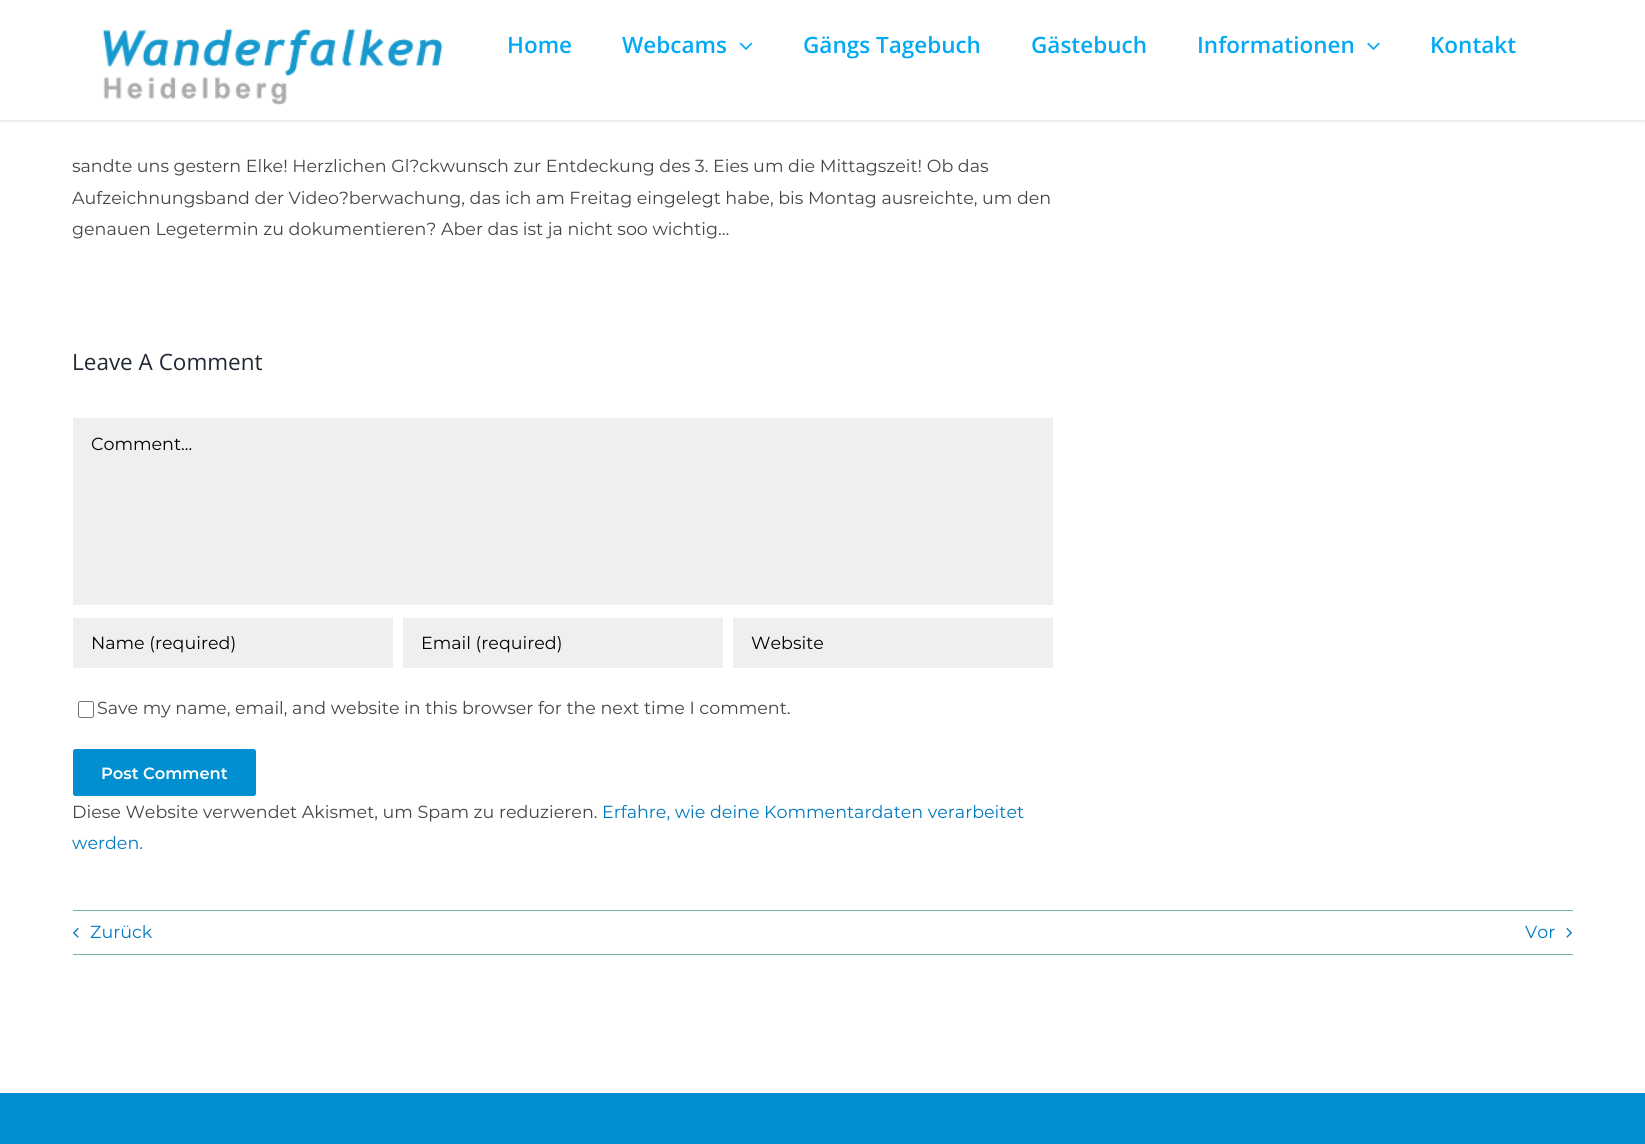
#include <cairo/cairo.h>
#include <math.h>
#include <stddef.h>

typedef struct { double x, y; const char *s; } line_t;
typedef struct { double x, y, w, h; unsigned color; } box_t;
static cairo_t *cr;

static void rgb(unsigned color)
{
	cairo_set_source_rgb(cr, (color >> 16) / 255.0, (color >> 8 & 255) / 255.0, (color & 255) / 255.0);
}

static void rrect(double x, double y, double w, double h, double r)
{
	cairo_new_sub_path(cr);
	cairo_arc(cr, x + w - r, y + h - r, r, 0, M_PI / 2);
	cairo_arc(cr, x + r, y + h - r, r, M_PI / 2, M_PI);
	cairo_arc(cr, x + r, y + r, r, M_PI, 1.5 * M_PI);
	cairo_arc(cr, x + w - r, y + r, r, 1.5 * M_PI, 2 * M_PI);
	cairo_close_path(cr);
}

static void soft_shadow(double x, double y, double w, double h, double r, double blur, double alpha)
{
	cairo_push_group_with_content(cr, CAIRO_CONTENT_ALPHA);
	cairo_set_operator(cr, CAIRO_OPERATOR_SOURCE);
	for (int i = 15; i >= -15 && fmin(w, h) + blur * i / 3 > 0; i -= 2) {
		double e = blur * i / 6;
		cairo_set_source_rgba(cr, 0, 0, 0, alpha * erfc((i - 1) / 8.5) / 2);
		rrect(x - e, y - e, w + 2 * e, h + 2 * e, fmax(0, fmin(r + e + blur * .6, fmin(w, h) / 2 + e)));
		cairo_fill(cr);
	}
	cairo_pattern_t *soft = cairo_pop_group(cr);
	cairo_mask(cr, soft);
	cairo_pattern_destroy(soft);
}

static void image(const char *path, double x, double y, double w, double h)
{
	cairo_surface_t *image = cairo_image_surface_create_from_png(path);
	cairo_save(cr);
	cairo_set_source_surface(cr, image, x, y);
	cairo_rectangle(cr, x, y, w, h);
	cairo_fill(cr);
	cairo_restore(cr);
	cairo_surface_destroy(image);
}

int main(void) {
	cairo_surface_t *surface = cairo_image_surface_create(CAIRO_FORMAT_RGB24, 1645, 1144);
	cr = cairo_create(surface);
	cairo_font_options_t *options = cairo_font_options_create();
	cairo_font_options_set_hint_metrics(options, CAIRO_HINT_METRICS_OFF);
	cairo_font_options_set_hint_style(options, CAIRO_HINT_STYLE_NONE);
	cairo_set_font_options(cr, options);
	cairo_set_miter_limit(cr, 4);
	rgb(0xffffff);
	cairo_paint(cr);
	rgb(0x000000);
	soft_shadow(0, 1, 1645, 120, 0, 2, 0.12);
	rgb(0xffffff);
	cairo_rectangle(cr, 0, 0, 1645, 120);
	cairo_fill(cr);
	image("img/1.png", 102, 28, 341, 77);
	image("img/2.png", 739, 42, 14, 8);
	image("img/3.png", 1367, 42, 13, 8);
	{
		static const box_t items[] = {
			{73, 418, 980, 187, 0xefefef},
			{73, 618, 320, 50, 0xefefef},
			{403, 618, 320, 50, 0xefefef},
			{733, 618, 320, 50, 0xefefef},
		};
		for (size_t i = 0; i < sizeof items / sizeof *items; i++) {
			rgb(items[i].color);
			cairo_rectangle(cr, items[i].x, items[i].y, items[i].w, items[i].h);
			cairo_fill(cr);
		}
	}
	rrect(78.5, 701.5, 15, 16, 2);
	rgb(0x767676);
	cairo_set_line_width(cr, 1);
	cairo_stroke(cr);
	rgb(0x028fd1);
	rrect(73, 749, 183, 47, 2.5);
	cairo_fill(cr);
	rgb(0x7bb3af);
	cairo_rectangle(cr, 73, 910, 1500, 1);
	cairo_fill(cr);
	cairo_rectangle(cr, 73, 954, 1500, 1);
	cairo_fill(cr);
	image("img/4.png", 73, 928, 6, 10);
	image("img/5.png", 1566, 928, 6, 10);
	rgb(0x028fd1);
	cairo_rectangle(cr, 0, 1093, 1645, 51);
	cairo_fill(cr);
	cairo_select_font_face(cr, "Open Sans SemiBold", CAIRO_FONT_SLANT_NORMAL, CAIRO_FONT_WEIGHT_NORMAL);
	cairo_set_font_size(cr, 22.5);
	rgb(0x03a9f4);
	{
		static const line_t items[] = {
			{507, 53, "Home"},
			{622, 53, "Webcams"},
			{803, 53, "Gängs Tagebuch"},
			{1031, 53, "Gästebuch"},
			{1197, 53, "Informationen"},
			{1430, 53, "Kontakt"},
		};
		for (size_t i = 0; i < sizeof items / sizeof *items; i++) {
			cairo_move_to(cr, items[i].x, items[i].y);
			cairo_show_text(cr, items[i].s);
		}
	}
	cairo_select_font_face(cr, "Montserrat", CAIRO_FONT_SLANT_NORMAL, CAIRO_FONT_WEIGHT_NORMAL);
	cairo_set_font_size(cr, 17.5);
	rgb(0x454545);
	{
		static const line_t items[] = {
			{72, 172, "sandte uns gestern Elke! Herzlichen Gl?ckwunsch zur Entdeckung des 3. Eies um die Mittagszeit! Ob das"},
			{72, 204, "Aufzeichnungsband der Video?berwachung, das ich am Freitag eingelegt habe, bis Montag ausreichte, um den"},
			{72, 235, "genauen Legetermin zu dokumentieren? Aber das ist ja nicht soo wichtig…"},
		};
		for (size_t i = 0; i < sizeof items / sizeof *items; i++) {
			cairo_move_to(cr, items[i].x, items[i].y);
			cairo_show_text(cr, items[i].s);
		}
	}
	cairo_select_font_face(cr, "Open Sans", CAIRO_FONT_SLANT_NORMAL, CAIRO_FONT_WEIGHT_NORMAL);
	cairo_set_font_size(cr, 22.5);
	rgb(0x212934);
	cairo_move_to(cr, 72, 370);
	cairo_show_text(cr, "Leave A Comment");
	cairo_select_font_face(cr, "Montserrat", CAIRO_FONT_SLANT_NORMAL, CAIRO_FONT_WEIGHT_NORMAL);
	cairo_set_font_size(cr, 17.5);
	rgb(0x000000);
	{
		static const line_t items[] = {
			{91, 450, "Comment..."},
			{91, 649, "Name (required)"},
			{421, 649, "Email (required)"},
			{751, 649, "Website"},
		};
		for (size_t i = 0; i < sizeof items / sizeof *items; i++) {
			cairo_move_to(cr, items[i].x, items[i].y);
			cairo_show_text(cr, items[i].s);
		}
	}
	rgb(0x454545);
	cairo_move_to(cr, 97, 714);
	cairo_show_text(cr, "Save my name, email, and website in this browser for the next time I comment.");
	cairo_select_font_face(cr, "Montserrat SemiBold", CAIRO_FONT_SLANT_NORMAL, CAIRO_FONT_WEIGHT_NORMAL);
	cairo_set_font_size(cr, 16.25);
	rgb(0xffffff);
	cairo_move_to(cr, 101, 779);
	cairo_show_text(cr, "Post Comment");
	cairo_select_font_face(cr, "Montserrat", CAIRO_FONT_SLANT_NORMAL, CAIRO_FONT_WEIGHT_NORMAL);
	cairo_set_font_size(cr, 17.5);
	rgb(0x454545);
	cairo_move_to(cr, 72, 818);
	cairo_show_text(cr, "Diese Website verwendet Akismet, um Spam zu reduzieren.");
	rgb(0x0179bf);
	{
		static const line_t items[] = {
			{602, 818, "Erfahre, wie deine Kommentardaten verarbeitet"},
			{72, 849, "werden."},
			{90, 938, "Zurück"},
			{1525, 938, "Vor"},
		};
		for (size_t i = 0; i < sizeof items / sizeof *items; i++) {
			cairo_move_to(cr, items[i].x, items[i].y);
			cairo_show_text(cr, items[i].s);
		}
	}
	cairo_surface_write_to_png(surface, "page.png");
	cairo_font_options_destroy(options);
	cairo_destroy(cr);
	cairo_surface_destroy(surface);
	return 0;
}
